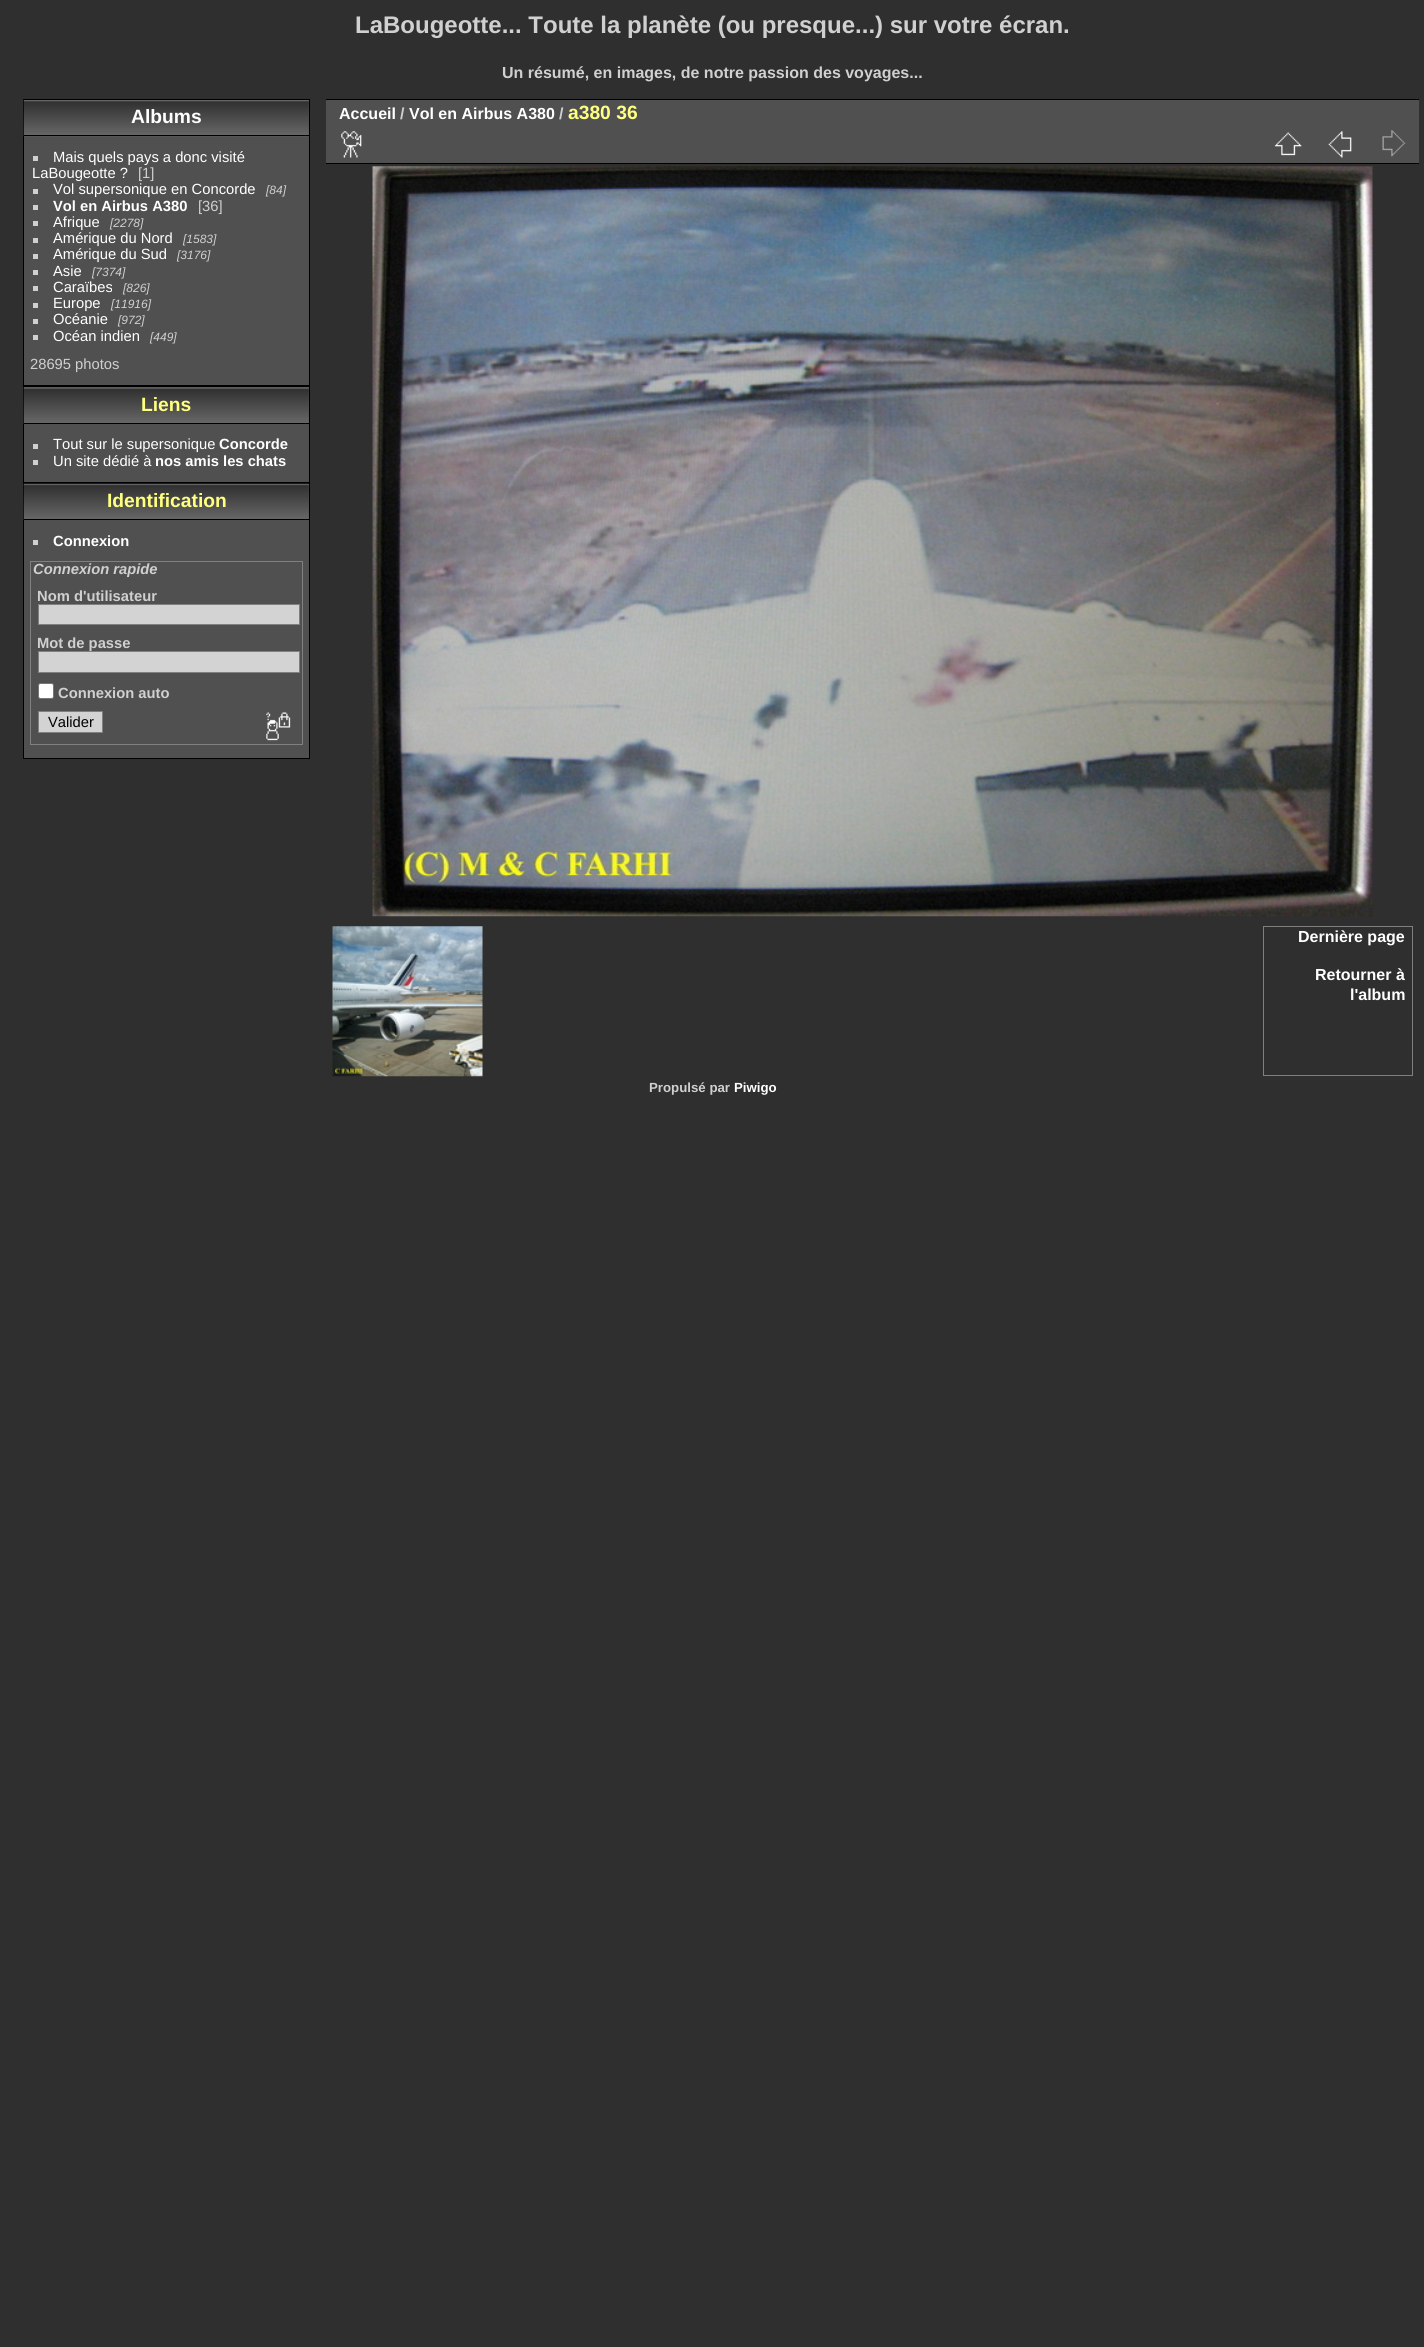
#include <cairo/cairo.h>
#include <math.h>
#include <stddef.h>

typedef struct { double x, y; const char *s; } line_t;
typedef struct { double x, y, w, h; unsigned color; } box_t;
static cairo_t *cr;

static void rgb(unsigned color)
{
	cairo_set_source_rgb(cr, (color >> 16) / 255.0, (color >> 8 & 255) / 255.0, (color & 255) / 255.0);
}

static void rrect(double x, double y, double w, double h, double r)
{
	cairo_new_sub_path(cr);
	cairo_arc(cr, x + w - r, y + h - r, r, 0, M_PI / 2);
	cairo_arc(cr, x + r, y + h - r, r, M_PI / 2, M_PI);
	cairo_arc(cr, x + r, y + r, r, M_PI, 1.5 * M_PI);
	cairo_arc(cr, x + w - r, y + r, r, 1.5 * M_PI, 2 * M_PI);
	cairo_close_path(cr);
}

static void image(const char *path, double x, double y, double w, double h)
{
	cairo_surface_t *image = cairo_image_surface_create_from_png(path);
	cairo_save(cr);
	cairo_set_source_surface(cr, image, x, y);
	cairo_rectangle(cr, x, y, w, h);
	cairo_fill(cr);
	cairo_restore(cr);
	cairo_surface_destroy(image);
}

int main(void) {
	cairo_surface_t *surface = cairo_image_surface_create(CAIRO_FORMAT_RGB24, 1424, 2347);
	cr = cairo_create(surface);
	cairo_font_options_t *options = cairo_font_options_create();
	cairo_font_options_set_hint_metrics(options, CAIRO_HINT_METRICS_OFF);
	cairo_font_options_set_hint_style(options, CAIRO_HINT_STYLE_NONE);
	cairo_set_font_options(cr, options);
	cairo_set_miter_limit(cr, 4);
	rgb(0x2f2f2f);
	cairo_paint(cr);
	rgb(0x505050);
	cairo_rectangle(cr, 23.5, 99.5, 286, 286);
	cairo_fill_preserve(cr);
	rgb(0x000000);
	cairo_set_line_width(cr, 1);
	cairo_stroke(cr);
	image("img/1.png", 23, 100, 286, 37);
	{
		static const box_t items[] = {
			{24, 135, 285, 1, 0x000000},
			{33, 156, 5, 5, 0xd0d0d0},
			{33, 189, 5, 5, 0xd0d0d0},
			{33, 205, 5, 5, 0xd0d0d0},
			{33, 221, 5, 5, 0xd0d0d0},
			{33, 238, 5, 5, 0xd0d0d0},
			{33, 254, 5, 5, 0xd0d0d0},
			{33, 270, 5, 5, 0xd0d0d0},
			{33, 286, 5, 5, 0xd0d0d0},
			{33, 303, 5, 5, 0xd0d0d0},
			{33, 319, 5, 5, 0xd0d0d0},
			{33, 335, 5, 5, 0xd0d0d0},
		};
		for (size_t i = 0; i < sizeof items / sizeof *items; i++) {
			rgb(items[i].color);
			cairo_rectangle(cr, items[i].x, items[i].y, items[i].w, items[i].h);
			cairo_fill(cr);
		}
	}
	rgb(0x505050);
	cairo_rectangle(cr, 23.5, 386.5, 286, 96);
	cairo_fill_preserve(cr);
	rgb(0x000000);
	cairo_stroke(cr);
	image("img/2.png", 23, 387, 286, 37);
	{
		static const box_t items[] = {
			{24, 423, 285, 1, 0x000000},
			{33, 444, 5, 5, 0xd0d0d0},
			{33, 460, 5, 5, 0xd0d0d0},
		};
		for (size_t i = 0; i < sizeof items / sizeof *items; i++) {
			rgb(items[i].color);
			cairo_rectangle(cr, items[i].x, items[i].y, items[i].w, items[i].h);
			cairo_fill(cr);
		}
	}
	rgb(0x505050);
	cairo_rectangle(cr, 23.5, 483.5, 286, 275);
	cairo_fill_preserve(cr);
	rgb(0x000000);
	cairo_stroke(cr);
	image("img/3.png", 23, 483, 286, 37);
	cairo_rectangle(cr, 24, 519, 285, 1);
	cairo_fill(cr);
	rgb(0xd0d0d0);
	cairo_rectangle(cr, 33, 540, 5, 5);
	cairo_fill(cr);
	cairo_rectangle(cr, 30.5, 561.5, 272, 183);
	rgb(0x808080);
	cairo_stroke(cr);
	rgb(0xd3d3d3);
	cairo_rectangle(cr, 38.5, 604.5, 261, 20);
	cairo_fill_preserve(cr);
	rgb(0x808080);
	cairo_stroke(cr);
	rgb(0xffffff);
	rrect(38.5, 683.5, 15, 15, 2);
	cairo_fill_preserve(cr);
	rgb(0x767676);
	cairo_stroke(cr);
	rgb(0xd3d3d3);
	cairo_rectangle(cr, 38.5, 711.5, 64, 21);
	cairo_fill_preserve(cr);
	rgb(0x808080);
	cairo_stroke(cr);
	image("img/4.png", 266, 712, 25, 29);
	rgb(0x505050);
	cairo_rectangle(cr, 326, 100, 1093, 63);
	cairo_fill(cr);
	rgb(0x000000);
	cairo_rectangle(cr, 326, 163, 1093, 1);
	cairo_fill(cr);
	image("img/5.png", 341, 131, 21, 27);
	image("img/6.png", 1274, 132, 28, 24);
	image("img/7.png", 1328, 131, 24, 27);
	image("img/8.png", 1382, 130, 24, 27);
	cairo_rectangle(cr, 326, 99, 1093, 1);
	cairo_fill(cr);
	image("img/9.png", 372, 166, 1001, 751);
	image("img/10.png", 332, 926, 151, 151);
	cairo_rectangle(cr, 1263.5, 926.5, 149, 149);
	rgb(0x808080);
	cairo_stroke(cr);
	cairo_select_font_face(cr, "Liberation Sans", CAIRO_FONT_SLANT_NORMAL, CAIRO_FONT_WEIGHT_BOLD);
	cairo_set_font_size(cr, 24);
	rgb(0xd0d0d0);
	cairo_move_to(cr, 355, 33);
	cairo_show_text(cr, "LaBougeotte... Toute la planète (ou presque...) sur votre écran.");
	cairo_set_font_size(cr, 16);
	cairo_move_to(cr, 502, 78);
	cairo_show_text(cr, "Un résumé, en images, de notre passion des voyages...");
	cairo_set_font_size(cr, 19.25);
	rgb(0xffffff);
	cairo_move_to(cr, 131, 123);
	cairo_show_text(cr, "Albums");
	cairo_select_font_face(cr, "Liberation Sans", CAIRO_FONT_SLANT_NORMAL, CAIRO_FONT_WEIGHT_NORMAL);
	cairo_set_font_size(cr, 14.75);
	cairo_move_to(cr, 53, 162);
	cairo_show_text(cr, "Mais quels pays a donc visité");
	cairo_move_to(cr, 32, 178);
	cairo_show_text(cr, "LaBougeotte ?");
	rgb(0xd0d0d0);
	cairo_move_to(cr, 138, 178);
	cairo_show_text(cr, "[1]");
	rgb(0xffffff);
	cairo_move_to(cr, 53, 194);
	cairo_show_text(cr, "Vol supersonique en Concorde");
	cairo_select_font_face(cr, "Liberation Sans", CAIRO_FONT_SLANT_ITALIC, CAIRO_FONT_WEIGHT_NORMAL);
	cairo_set_font_size(cr, 12);
	rgb(0xd0d0d0);
	cairo_move_to(cr, 266, 194);
	cairo_show_text(cr, "[84]");
	cairo_select_font_face(cr, "Liberation Sans", CAIRO_FONT_SLANT_NORMAL, CAIRO_FONT_WEIGHT_BOLD);
	cairo_set_font_size(cr, 14.75);
	rgb(0xffffff);
	cairo_move_to(cr, 53, 211);
	cairo_show_text(cr, "Vol en Airbus A380");
	cairo_select_font_face(cr, "Liberation Sans", CAIRO_FONT_SLANT_NORMAL, CAIRO_FONT_WEIGHT_NORMAL);
	rgb(0xd0d0d0);
	cairo_move_to(cr, 198, 211);
	cairo_show_text(cr, "[36]");
	rgb(0xffffff);
	cairo_move_to(cr, 53, 227);
	cairo_show_text(cr, "Afrique");
	cairo_select_font_face(cr, "Liberation Sans", CAIRO_FONT_SLANT_ITALIC, CAIRO_FONT_WEIGHT_NORMAL);
	cairo_set_font_size(cr, 12);
	rgb(0xd0d0d0);
	cairo_move_to(cr, 110, 227);
	cairo_show_text(cr, "[2278]");
	cairo_select_font_face(cr, "Liberation Sans", CAIRO_FONT_SLANT_NORMAL, CAIRO_FONT_WEIGHT_NORMAL);
	cairo_set_font_size(cr, 14.75);
	rgb(0xffffff);
	cairo_move_to(cr, 53, 243);
	cairo_show_text(cr, "Amérique du Nord");
	cairo_select_font_face(cr, "Liberation Sans", CAIRO_FONT_SLANT_ITALIC, CAIRO_FONT_WEIGHT_NORMAL);
	cairo_set_font_size(cr, 12);
	rgb(0xd0d0d0);
	cairo_move_to(cr, 183, 243);
	cairo_show_text(cr, "[1583]");
	cairo_select_font_face(cr, "Liberation Sans", CAIRO_FONT_SLANT_NORMAL, CAIRO_FONT_WEIGHT_NORMAL);
	cairo_set_font_size(cr, 14.75);
	rgb(0xffffff);
	cairo_move_to(cr, 53, 259);
	cairo_show_text(cr, "Amérique du Sud");
	cairo_select_font_face(cr, "Liberation Sans", CAIRO_FONT_SLANT_ITALIC, CAIRO_FONT_WEIGHT_NORMAL);
	cairo_set_font_size(cr, 12);
	rgb(0xd0d0d0);
	cairo_move_to(cr, 177, 259);
	cairo_show_text(cr, "[3176]");
	cairo_select_font_face(cr, "Liberation Sans", CAIRO_FONT_SLANT_NORMAL, CAIRO_FONT_WEIGHT_NORMAL);
	cairo_set_font_size(cr, 14.75);
	rgb(0xffffff);
	cairo_move_to(cr, 53, 276);
	cairo_show_text(cr, "Asie");
	cairo_select_font_face(cr, "Liberation Sans", CAIRO_FONT_SLANT_ITALIC, CAIRO_FONT_WEIGHT_NORMAL);
	cairo_set_font_size(cr, 12);
	rgb(0xd0d0d0);
	cairo_move_to(cr, 92, 276);
	cairo_show_text(cr, "[7374]");
	cairo_select_font_face(cr, "Liberation Sans", CAIRO_FONT_SLANT_NORMAL, CAIRO_FONT_WEIGHT_NORMAL);
	cairo_set_font_size(cr, 14.75);
	rgb(0xffffff);
	cairo_move_to(cr, 53, 292);
	cairo_show_text(cr, "Caraïbes");
	cairo_select_font_face(cr, "Liberation Sans", CAIRO_FONT_SLANT_ITALIC, CAIRO_FONT_WEIGHT_NORMAL);
	cairo_set_font_size(cr, 12);
	rgb(0xd0d0d0);
	cairo_move_to(cr, 123, 292);
	cairo_show_text(cr, "[826]");
	cairo_select_font_face(cr, "Liberation Sans", CAIRO_FONT_SLANT_NORMAL, CAIRO_FONT_WEIGHT_NORMAL);
	cairo_set_font_size(cr, 14.75);
	rgb(0xffffff);
	cairo_move_to(cr, 53, 308);
	cairo_show_text(cr, "Europe");
	cairo_select_font_face(cr, "Liberation Sans", CAIRO_FONT_SLANT_ITALIC, CAIRO_FONT_WEIGHT_NORMAL);
	cairo_set_font_size(cr, 12);
	rgb(0xd0d0d0);
	cairo_move_to(cr, 111, 308);
	cairo_show_text(cr, "[11916]");
	cairo_select_font_face(cr, "Liberation Sans", CAIRO_FONT_SLANT_NORMAL, CAIRO_FONT_WEIGHT_NORMAL);
	cairo_set_font_size(cr, 14.75);
	rgb(0xffffff);
	cairo_move_to(cr, 53, 324);
	cairo_show_text(cr, "Océanie");
	cairo_select_font_face(cr, "Liberation Sans", CAIRO_FONT_SLANT_ITALIC, CAIRO_FONT_WEIGHT_NORMAL);
	cairo_set_font_size(cr, 12);
	rgb(0xd0d0d0);
	cairo_move_to(cr, 118, 324);
	cairo_show_text(cr, "[972]");
	cairo_select_font_face(cr, "Liberation Sans", CAIRO_FONT_SLANT_NORMAL, CAIRO_FONT_WEIGHT_NORMAL);
	cairo_set_font_size(cr, 14.75);
	rgb(0xffffff);
	cairo_move_to(cr, 53, 341);
	cairo_show_text(cr, "Océan indien");
	cairo_select_font_face(cr, "Liberation Sans", CAIRO_FONT_SLANT_ITALIC, CAIRO_FONT_WEIGHT_NORMAL);
	cairo_set_font_size(cr, 12);
	rgb(0xd0d0d0);
	cairo_move_to(cr, 150, 341);
	cairo_show_text(cr, "[449]");
	cairo_select_font_face(cr, "Liberation Sans", CAIRO_FONT_SLANT_NORMAL, CAIRO_FONT_WEIGHT_NORMAL);
	cairo_set_font_size(cr, 14.75);
	cairo_move_to(cr, 30, 369);
	cairo_show_text(cr, "28695 photos");
	cairo_select_font_face(cr, "Liberation Sans", CAIRO_FONT_SLANT_NORMAL, CAIRO_FONT_WEIGHT_BOLD);
	cairo_set_font_size(cr, 19.25);
	rgb(0xffff80);
	cairo_move_to(cr, 141, 411);
	cairo_show_text(cr, "Liens");
	cairo_select_font_face(cr, "Liberation Sans", CAIRO_FONT_SLANT_NORMAL, CAIRO_FONT_WEIGHT_NORMAL);
	cairo_set_font_size(cr, 14.75);
	rgb(0xffffff);
	cairo_move_to(cr, 53, 449);
	cairo_show_text(cr, "Tout sur le supersonique");
	cairo_select_font_face(cr, "Liberation Sans", CAIRO_FONT_SLANT_NORMAL, CAIRO_FONT_WEIGHT_BOLD);
	cairo_move_to(cr, 219, 449);
	cairo_show_text(cr, "Concorde");
	cairo_select_font_face(cr, "Liberation Sans", CAIRO_FONT_SLANT_NORMAL, CAIRO_FONT_WEIGHT_NORMAL);
	cairo_move_to(cr, 53, 466);
	cairo_show_text(cr, "Un site dédié à");
	cairo_select_font_face(cr, "Liberation Sans", CAIRO_FONT_SLANT_NORMAL, CAIRO_FONT_WEIGHT_BOLD);
	cairo_move_to(cr, 155, 466);
	cairo_show_text(cr, "nos amis les chats");
	cairo_set_font_size(cr, 19.25);
	rgb(0xffff80);
	cairo_move_to(cr, 107, 507);
	cairo_show_text(cr, "Identification");
	cairo_set_font_size(cr, 14.75);
	rgb(0xffffff);
	cairo_move_to(cr, 53, 546);
	cairo_show_text(cr, "Connexion");
	cairo_select_font_face(cr, "Liberation Sans", CAIRO_FONT_SLANT_ITALIC, CAIRO_FONT_WEIGHT_BOLD);
	rgb(0xd0d0d0);
	cairo_move_to(cr, 33, 574);
	cairo_show_text(cr, "Connexion rapide");
	cairo_select_font_face(cr, "Liberation Sans", CAIRO_FONT_SLANT_NORMAL, CAIRO_FONT_WEIGHT_BOLD);
	cairo_move_to(cr, 37, 601);
	cairo_show_text(cr, "Nom d'utilisateur");
	cairo_move_to(cr, 37, 648);
	cairo_show_text(cr, "Mot de passe");
	rgb(0xd3d3d3);
	cairo_rectangle(cr, 38.5, 651.5, 261, 21);
	cairo_fill_preserve(cr);
	rgb(0x808080);
	cairo_stroke(cr);
	rgb(0xd0d0d0);
	cairo_move_to(cr, 58, 698);
	cairo_show_text(cr, "Connexion auto");
	cairo_select_font_face(cr, "Liberation Sans", CAIRO_FONT_SLANT_NORMAL, CAIRO_FONT_WEIGHT_NORMAL);
	rgb(0x000000);
	cairo_move_to(cr, 48, 727);
	cairo_show_text(cr, "Valider");
	cairo_select_font_face(cr, "Liberation Sans", CAIRO_FONT_SLANT_NORMAL, CAIRO_FONT_WEIGHT_BOLD);
	cairo_set_font_size(cr, 16);
	rgb(0xffffff);
	cairo_move_to(cr, 339, 119);
	cairo_show_text(cr, "Accueil");
	rgb(0xd0d0d0);
	cairo_move_to(cr, 400, 119);
	cairo_show_text(cr, "/");
	rgb(0xffffff);
	cairo_move_to(cr, 409, 119);
	cairo_show_text(cr, "Vol en Airbus A380");
	rgb(0xd0d0d0);
	cairo_move_to(cr, 559, 119);
	cairo_show_text(cr, "/");
	cairo_set_font_size(cr, 19.25);
	rgb(0xffff80);
	cairo_move_to(cr, 568, 119);
	cairo_show_text(cr, "a380 36");
	cairo_set_font_size(cr, 16);
	rgb(0xffffff);
	{
		static const line_t items[] = {
			{1298, 942, "Dernière page"},
			{1315, 980, "Retourner à"},
			{1350, 1000, "l'album"},
		};
		for (size_t i = 0; i < sizeof items / sizeof *items; i++) {
			cairo_move_to(cr, items[i].x, items[i].y);
			cairo_show_text(cr, items[i].s);
		}
	}
	cairo_set_font_size(cr, 13.25);
	rgb(0xd0d0d0);
	cairo_move_to(cr, 649, 1092);
	cairo_show_text(cr, "Propulsé par");
	rgb(0xffffff);
	cairo_move_to(cr, 734, 1092);
	cairo_show_text(cr, "Piwigo");
	cairo_surface_write_to_png(surface, "page.png");
	cairo_font_options_destroy(options);
	cairo_destroy(cr);
	cairo_surface_destroy(surface);
	return 0;
}
